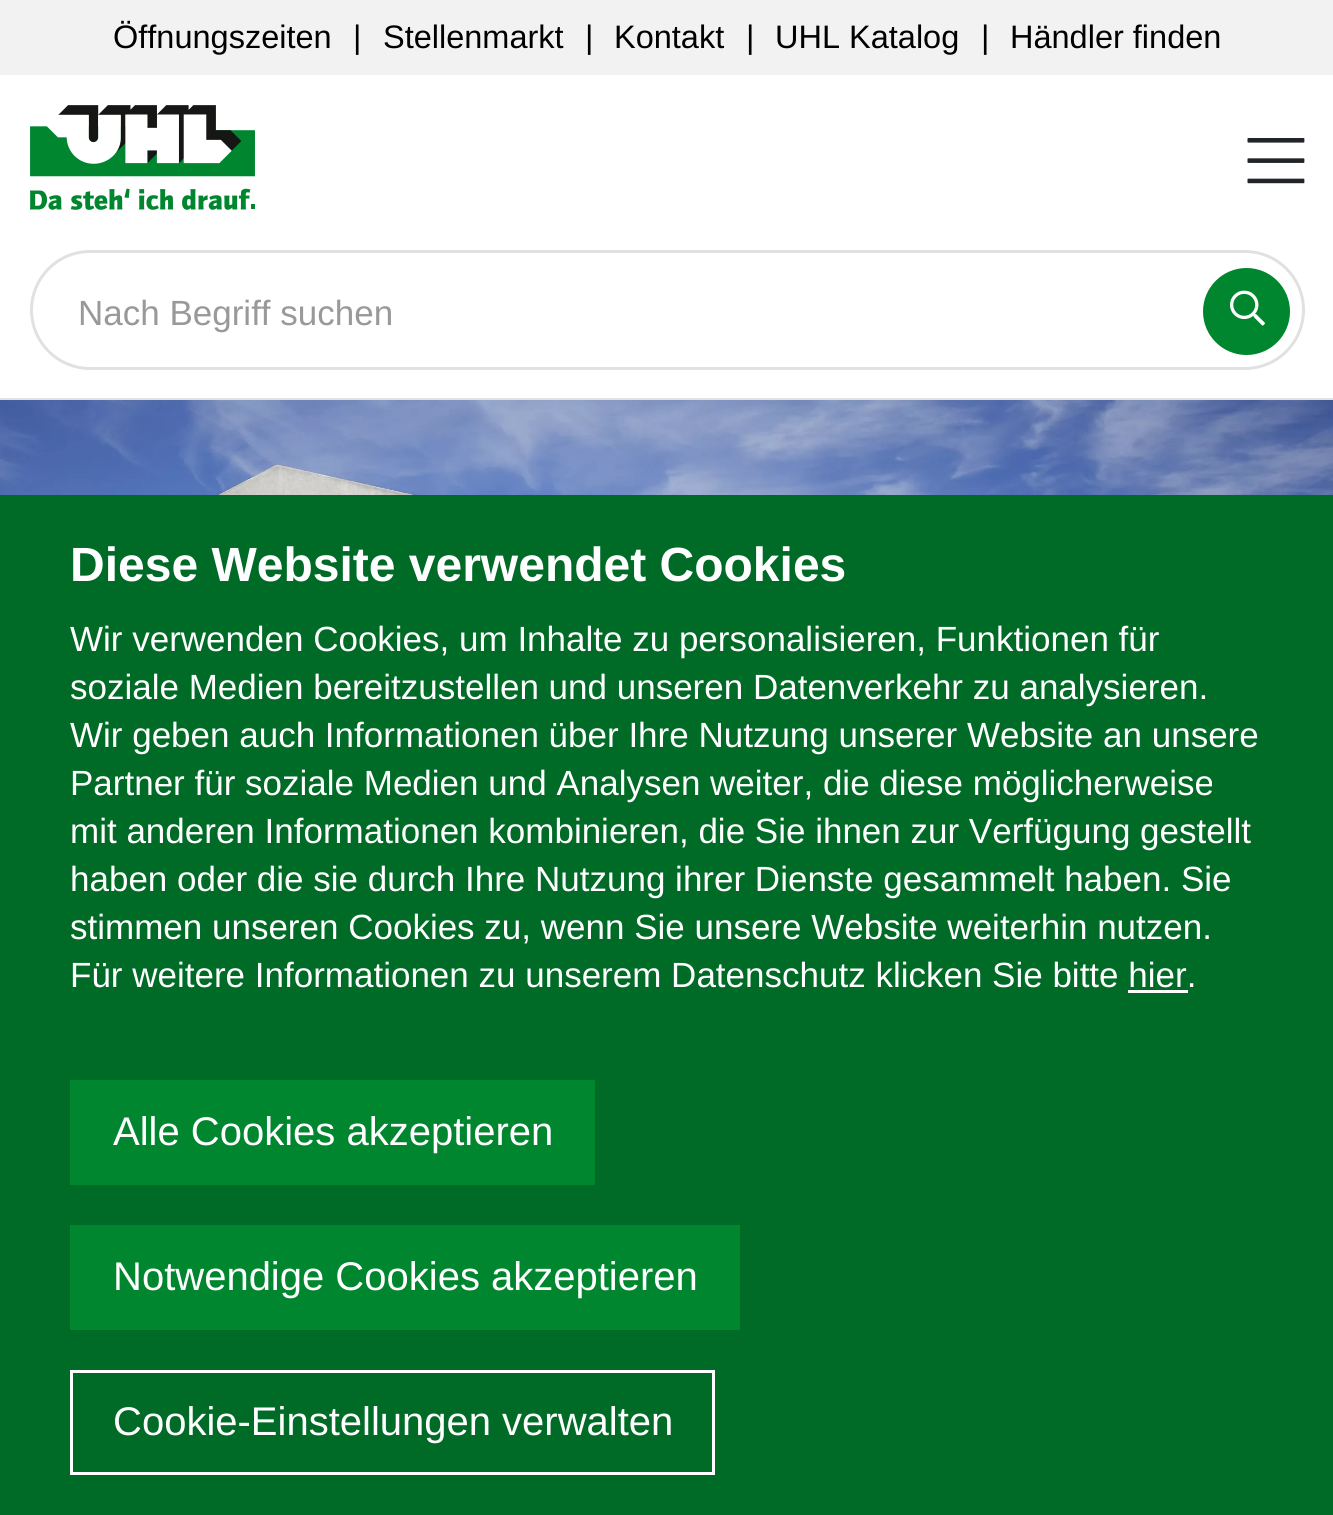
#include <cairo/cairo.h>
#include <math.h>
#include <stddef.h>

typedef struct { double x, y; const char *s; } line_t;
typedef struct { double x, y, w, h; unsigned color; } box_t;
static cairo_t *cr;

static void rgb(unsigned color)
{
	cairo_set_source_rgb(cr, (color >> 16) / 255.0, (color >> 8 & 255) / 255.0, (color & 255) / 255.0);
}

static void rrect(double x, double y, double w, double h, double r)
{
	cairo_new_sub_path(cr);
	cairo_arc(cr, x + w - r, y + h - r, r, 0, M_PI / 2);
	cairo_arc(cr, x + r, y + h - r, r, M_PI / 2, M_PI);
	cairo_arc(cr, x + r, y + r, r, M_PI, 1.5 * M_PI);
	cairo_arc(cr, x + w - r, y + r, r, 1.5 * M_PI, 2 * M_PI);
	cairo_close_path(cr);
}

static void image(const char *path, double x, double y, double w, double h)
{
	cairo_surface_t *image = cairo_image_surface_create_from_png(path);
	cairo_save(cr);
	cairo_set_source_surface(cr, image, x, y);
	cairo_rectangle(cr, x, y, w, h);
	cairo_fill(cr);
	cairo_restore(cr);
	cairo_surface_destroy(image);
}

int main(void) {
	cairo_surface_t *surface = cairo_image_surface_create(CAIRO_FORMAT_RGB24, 1333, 1515);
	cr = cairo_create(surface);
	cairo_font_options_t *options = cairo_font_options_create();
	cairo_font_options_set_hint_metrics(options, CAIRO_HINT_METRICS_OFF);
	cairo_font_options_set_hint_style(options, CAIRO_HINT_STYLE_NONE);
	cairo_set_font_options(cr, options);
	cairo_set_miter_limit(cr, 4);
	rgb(0xffffff);
	cairo_paint(cr);
	rgb(0xf2f2f2);
	cairo_rectangle(cr, 0, 0, 1333, 75);
	cairo_fill(cr);
	image("img/1.png", 30, 105, 225, 105);
	image("img/2.png", 1247, 138, 58, 46);
	rrect(31.5, 251.5, 1272, 117, 58.5);
	rgb(0xe1e1e1);
	cairo_set_line_width(cr, 3);
	cairo_stroke(cr);
	rgb(0x00862f);
	cairo_arc(cr, 1246.5, 311.5, 43.5, 0, 2 * M_PI);
	cairo_fill(cr);
	image("img/3.png", 1230, 290, 35, 36);
	rgb(0xe1e1e1);
	cairo_rectangle(cr, 0, 398, 1333, 2);
	cairo_fill(cr);
	image("img/4.png", 0, 400, 1333, 95);
	{
		static const box_t items[] = {
			{0, 495, 1333, 1020, 0x006b26},
			{1128, 990, 60, 3, 0xffffff},
			{70, 1080, 525, 105, 0x00862f},
			{70, 1225, 670, 105, 0x00862f},
		};
		for (size_t i = 0; i < sizeof items / sizeof *items; i++) {
			rgb(items[i].color);
			cairo_rectangle(cr, items[i].x, items[i].y, items[i].w, items[i].h);
			cairo_fill(cr);
		}
	}
	cairo_rectangle(cr, 71.5, 1371.5, 642, 102);
	rgb(0xffffff);
	cairo_stroke(cr);
	cairo_select_font_face(cr, "Liberation Sans", CAIRO_FONT_SLANT_NORMAL, CAIRO_FONT_WEIGHT_NORMAL);
	cairo_set_font_size(cr, 32.5);
	rgb(0x000000);
	{
		static const line_t items[] = {
			{113, 48, "Öffnungszeiten"},
			{353, 48, "|"},
			{383, 48, "Stellenmarkt"},
			{585, 48, "|"},
			{614, 48, "Kontakt"},
			{746, 48, "|"},
			{775, 48, "UHL Katalog"},
			{981, 48, "|"},
			{1010, 48, "Händler finden"},
		};
		for (size_t i = 0; i < sizeof items / sizeof *items; i++) {
			cairo_move_to(cr, items[i].x, items[i].y);
			cairo_show_text(cr, items[i].s);
		}
	}
	cairo_set_font_size(cr, 35);
	rgb(0x999999);
	cairo_move_to(cr, 78, 325);
	cairo_show_text(cr, "Nach Begriff suchen");
	cairo_select_font_face(cr, "Liberation Sans", CAIRO_FONT_SLANT_NORMAL, CAIRO_FONT_WEIGHT_BOLD);
	cairo_set_font_size(cr, 48);
	rgb(0xffffff);
	cairo_move_to(cr, 70, 581);
	cairo_show_text(cr, "Diese Website verwendet Cookies");
	cairo_select_font_face(cr, "Liberation Sans", CAIRO_FONT_SLANT_NORMAL, CAIRO_FONT_WEIGHT_NORMAL);
	cairo_set_font_size(cr, 35);
	{
		static const line_t items[] = {
			{70, 651, "Wir verwenden Cookies, um Inhalte zu personalisieren, Funktionen für"},
			{70, 699, "soziale Medien bereitzustellen und unseren Datenverkehr zu analysieren."},
			{70, 747, "Wir geben auch Informationen über Ihre Nutzung unserer Website an unsere"},
			{70, 795, "Partner für soziale Medien und Analysen weiter, die diese möglicherweise"},
			{70, 843, "mit anderen Informationen kombinieren, die Sie ihnen zur Verfügung gestellt"},
			{70, 891, "haben oder die sie durch Ihre Nutzung ihrer Dienste gesammelt haben. Sie"},
			{70, 939, "stimmen unseren Cookies zu, wenn Sie unsere Website weiterhin nutzen."},
			{70, 987, "Für weitere Informationen zu unserem Datenschutz klicken Sie bitte hier."},
		};
		for (size_t i = 0; i < sizeof items / sizeof *items; i++) {
			cairo_move_to(cr, items[i].x, items[i].y);
			cairo_show_text(cr, items[i].s);
		}
	}
	cairo_set_font_size(cr, 40);
	{
		static const line_t items[] = {
			{113, 1145, "Alle Cookies akzeptieren"},
			{113, 1290, "Notwendige Cookies akzeptieren"},
			{113, 1435, "Cookie-Einstellungen verwalten"},
		};
		for (size_t i = 0; i < sizeof items / sizeof *items; i++) {
			cairo_move_to(cr, items[i].x, items[i].y);
			cairo_show_text(cr, items[i].s);
		}
	}
	cairo_surface_write_to_png(surface, "page.png");
	cairo_font_options_destroy(options);
	cairo_destroy(cr);
	cairo_surface_destroy(surface);
	return 0;
}
